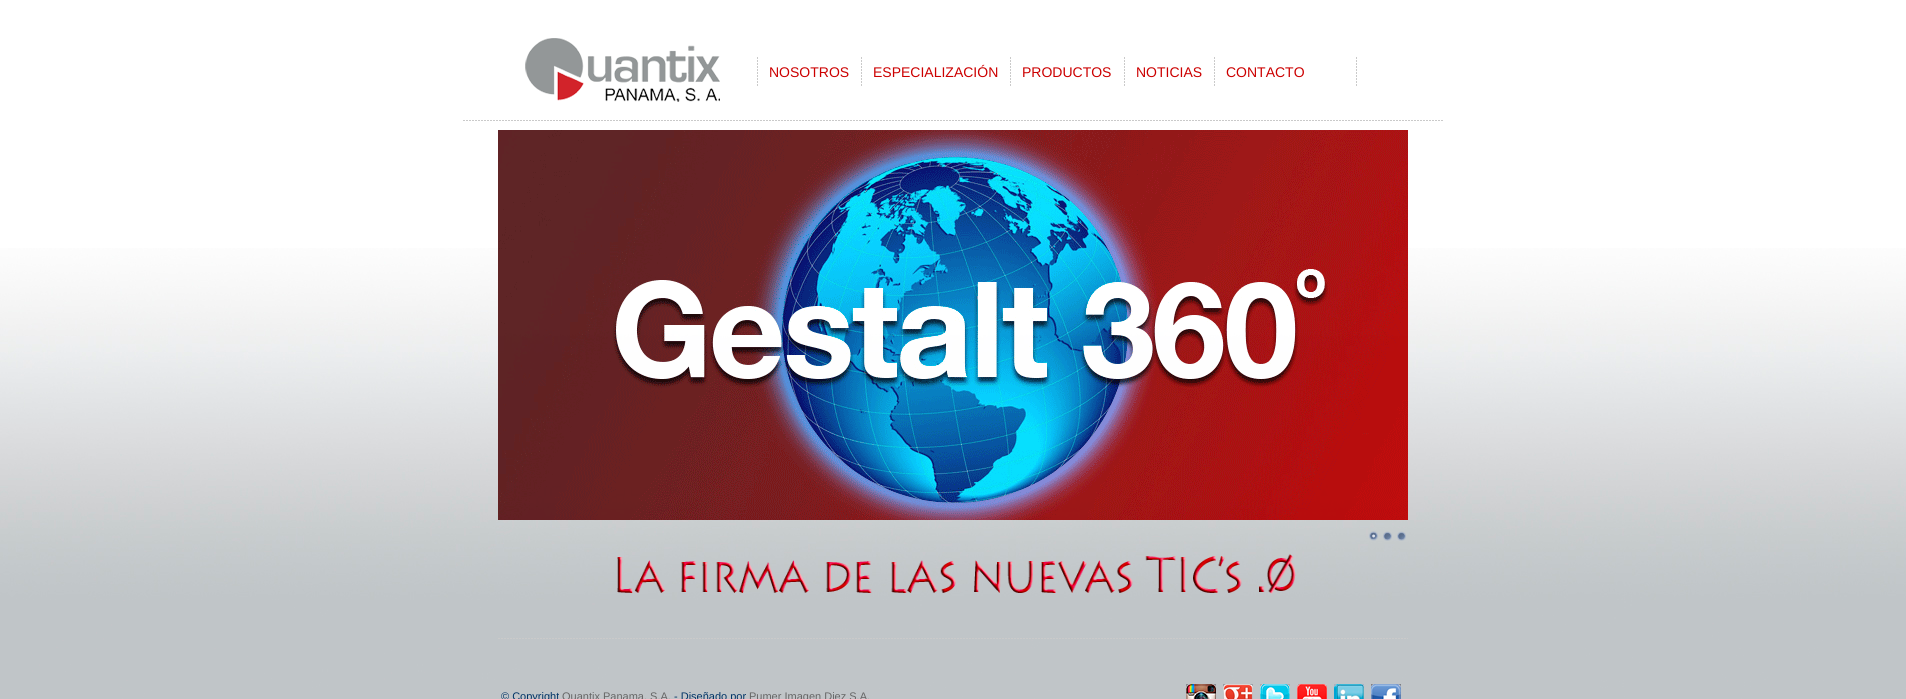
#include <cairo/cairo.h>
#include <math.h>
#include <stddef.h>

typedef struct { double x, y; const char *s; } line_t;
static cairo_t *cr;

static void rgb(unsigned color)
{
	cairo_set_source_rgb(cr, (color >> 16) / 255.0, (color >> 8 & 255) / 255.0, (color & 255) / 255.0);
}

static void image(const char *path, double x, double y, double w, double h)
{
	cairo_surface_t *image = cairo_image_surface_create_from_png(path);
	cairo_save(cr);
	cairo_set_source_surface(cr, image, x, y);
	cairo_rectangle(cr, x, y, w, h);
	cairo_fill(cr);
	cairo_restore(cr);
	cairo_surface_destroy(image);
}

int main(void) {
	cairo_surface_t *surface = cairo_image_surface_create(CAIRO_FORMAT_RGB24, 1906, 699);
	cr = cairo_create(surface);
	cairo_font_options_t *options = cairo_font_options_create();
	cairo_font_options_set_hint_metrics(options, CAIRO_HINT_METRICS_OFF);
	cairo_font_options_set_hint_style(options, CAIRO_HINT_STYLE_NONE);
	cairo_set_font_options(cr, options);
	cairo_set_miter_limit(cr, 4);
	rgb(0xffffff);
	cairo_paint(cr);
	image("img/1.png", 0, 248, 1906, 451);
	image("img/2.png", 525, 38, 195, 64);
	image("img/3.png", 1356, 57, 1, 29);
	image("img/3.png", 757, 57, 1, 29);
	image("img/3.png", 861, 57, 1, 29);
	image("img/3.png", 1010, 57, 1, 29);
	image("img/3.png", 1124, 57, 1, 29);
	image("img/3.png", 1214, 57, 1, 29);
	image("img/4.png", 463, 120, 980, 1);
	image("img/5.png", 498, 638, 910, 1);
	image("img/6.png", 498, 130, 910, 390);
	image("img/7.png", 1369, 531, 9, 10);
	image("img/8.png", 1383, 531, 9, 10);
	image("img/9.png", 1397, 531, 9, 10);
	image("img/10.png", 617, 554, 679, 40);
	image("img/11.png", 1186, 684, 30, 15);
	image("img/12.png", 1223, 684, 30, 15);
	image("img/13.png", 1260, 684, 30, 15);
	image("img/14.png", 1297, 684, 30, 15);
	image("img/15.png", 1334, 684, 30, 15);
	image("img/16.png", 1371, 684, 30, 15);
	cairo_select_font_face(cr, "Liberation Sans", CAIRO_FONT_SLANT_NORMAL, CAIRO_FONT_WEIGHT_NORMAL);
	cairo_set_font_size(cr, 14);
	rgb(0xcc0000);
	{
		static const line_t items[] = {
			{769, 77, "NOSOTROS"},
			{873, 77, "ESPECIALIZACIÓN"},
			{1022, 77, "PRODUCTOS"},
			{1136, 77, "NOTICIAS"},
			{1226, 77, "CONTACTO"},
		};
		for (size_t i = 0; i < sizeof items / sizeof *items; i++) {
			cairo_move_to(cr, items[i].x, items[i].y);
			cairo_show_text(cr, items[i].s);
		}
	}
	cairo_set_font_size(cr, 11);
	rgb(0x003366);
	cairo_move_to(cr, 501, 700);
	cairo_show_text(cr, "© Copyright");
	rgb(0x666666);
	cairo_move_to(cr, 562, 700);
	cairo_show_text(cr, "Quantix Panama, S.A.");
	rgb(0x003366);
	cairo_move_to(cr, 674, 700);
	cairo_show_text(cr, "- Diseñado por");
	rgb(0x666666);
	cairo_move_to(cr, 749, 700);
	cairo_show_text(cr, "Pumer Imagen Diez S.A.");
	cairo_surface_write_to_png(surface, "page.png");
	cairo_font_options_destroy(options);
	cairo_destroy(cr);
	cairo_surface_destroy(surface);
	return 0;
}
